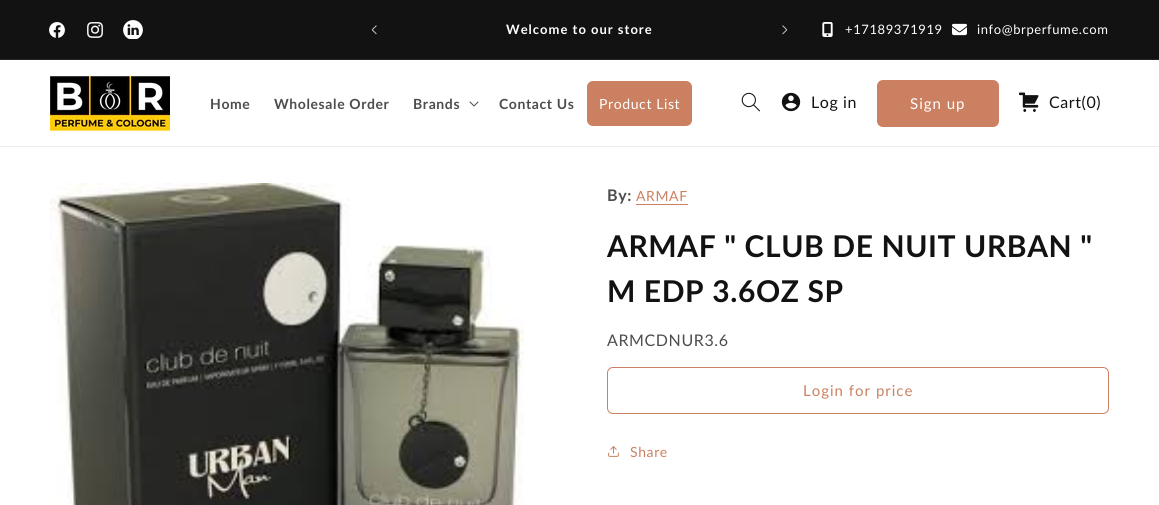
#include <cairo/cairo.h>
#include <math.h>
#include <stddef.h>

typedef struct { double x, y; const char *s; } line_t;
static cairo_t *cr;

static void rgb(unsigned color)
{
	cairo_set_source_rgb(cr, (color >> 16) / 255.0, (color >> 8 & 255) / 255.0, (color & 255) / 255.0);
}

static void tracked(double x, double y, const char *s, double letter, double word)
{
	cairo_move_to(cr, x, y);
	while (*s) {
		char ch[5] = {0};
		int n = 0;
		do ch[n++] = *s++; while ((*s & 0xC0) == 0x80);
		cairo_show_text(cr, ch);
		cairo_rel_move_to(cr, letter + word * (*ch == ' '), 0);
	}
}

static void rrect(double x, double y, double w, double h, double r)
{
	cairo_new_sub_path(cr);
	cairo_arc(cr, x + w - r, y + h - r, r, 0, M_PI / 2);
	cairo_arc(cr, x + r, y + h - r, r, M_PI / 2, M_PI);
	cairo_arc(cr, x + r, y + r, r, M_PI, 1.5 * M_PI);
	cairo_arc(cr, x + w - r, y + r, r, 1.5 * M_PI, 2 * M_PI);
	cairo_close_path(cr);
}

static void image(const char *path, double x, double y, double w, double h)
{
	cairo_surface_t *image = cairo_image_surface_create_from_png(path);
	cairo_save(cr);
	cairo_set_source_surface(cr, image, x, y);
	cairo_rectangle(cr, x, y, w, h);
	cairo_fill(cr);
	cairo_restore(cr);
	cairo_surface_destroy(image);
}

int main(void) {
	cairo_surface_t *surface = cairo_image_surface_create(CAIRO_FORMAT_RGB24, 1159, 505);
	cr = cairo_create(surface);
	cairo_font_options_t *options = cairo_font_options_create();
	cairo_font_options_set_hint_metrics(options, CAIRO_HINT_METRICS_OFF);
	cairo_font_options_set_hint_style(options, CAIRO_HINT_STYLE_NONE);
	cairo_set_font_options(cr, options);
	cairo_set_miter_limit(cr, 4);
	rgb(0xffffff);
	cairo_paint(cr);
	rgb(0x121212);
	cairo_rectangle(cr, 0, 0, 1159, 59);
	cairo_fill(cr);
	rgb(0x252525);
	cairo_rectangle(cr, 0, 59, 1159, 1);
	cairo_fill(cr);
	image("img/1.png", 49, 22, 16, 16);
	image("img/2.png", 87, 22, 16, 16);
	image("img/3.png", 123, 20, 20, 19);
	image("img/4.png", 371, 25, 6, 10);
	image("img/5.png", 782, 25, 6, 10);
	image("img/6.png", 822, 22, 11, 15);
	image("img/7.png", 952, 23, 15, 13);
	rgb(0xececec);
	cairo_rectangle(cr, 0, 146, 1159, 1);
	cairo_fill(cr);
	image("img/8.png", 50, 76, 120, 55);
	image("img/9.png", 469, 101, 10, 6);
	rgb(0xcb8161);
	rrect(587, 81, 105, 45, 6);
	cairo_fill(cr);
	image("img/10.png", 741, 92, 19, 20);
	image("img/11.png", 781, 92, 20, 20);
	rrect(877, 80, 122, 47, 6);
	cairo_fill(cr);
	image("img/12.png", 1019, 92, 20, 20);
	image("img/13.png", 50, 183, 474, 322);
	cairo_rectangle(cr, 636, 204, 52, 1);
	cairo_fill(cr);
	rrect(607.5, 367.5, 501, 46, 5.5);
	cairo_set_line_width(cr, 1);
	cairo_stroke(cr);
	image("img/14.png", 608, 446, 11, 11);
	cairo_select_font_face(cr, "Lato", CAIRO_FONT_SLANT_NORMAL, CAIRO_FONT_WEIGHT_BOLD);
	cairo_set_font_size(cr, 13);
	rgb(0xffffff);
	tracked(506, 34, "Welcome to our store", 1, 0);
	cairo_select_font_face(cr, "Lato", CAIRO_FONT_SLANT_NORMAL, CAIRO_FONT_WEIGHT_NORMAL);
	tracked(845, 34, "+17189371919", 0.6, 0);
	tracked(977, 34, "info@brperfume.com", 0.6, 0);
	cairo_select_font_face(cr, "Lato", CAIRO_FONT_SLANT_NORMAL, CAIRO_FONT_WEIGHT_BOLD);
	cairo_set_font_size(cr, 14);
	rgb(0x4d4d4d);
	{
		static const line_t items[] = {
			{210, 109, "Home"},
			{274, 109, "Wholesale Order"},
			{413, 109, "Brands"},
			{499, 109, "Contact Us"},
		};
		for (size_t i = 0; i < sizeof items / sizeof *items; i++) {
			tracked(items[i].x, items[i].y, items[i].s, 0.6, 0);
		}
	}
	cairo_select_font_face(cr, "Lato", CAIRO_FONT_SLANT_NORMAL, CAIRO_FONT_WEIGHT_NORMAL);
	rgb(0xffffff);
	tracked(599, 109, "Product List", 0.6, 0);
	cairo_set_font_size(cr, 16);
	rgb(0x121212);
	tracked(811, 108, "Log in", 0.6, 0);
	cairo_set_font_size(cr, 15);
	rgb(0xffffff);
	tracked(910, 109, "Sign up", 1, 0);
	cairo_set_font_size(cr, 16);
	rgb(0x121212);
	tracked(1049, 108, "Cart(0)", 0.6, 0);
	cairo_select_font_face(cr, "Lato", CAIRO_FONT_SLANT_NORMAL, CAIRO_FONT_WEIGHT_BOLD);
	rgb(0x4d4d4d);
	tracked(607, 201, "By:", 0.6, 0);
	cairo_select_font_face(cr, "Lato", CAIRO_FONT_SLANT_NORMAL, CAIRO_FONT_WEIGHT_NORMAL);
	cairo_set_font_size(cr, 14);
	rgb(0xcb8161);
	tracked(636, 201, "ARMAF", 0.6, 0);
	cairo_select_font_face(cr, "Lato", CAIRO_FONT_SLANT_NORMAL, CAIRO_FONT_WEIGHT_BOLD);
	cairo_set_font_size(cr, 30);
	rgb(0x121212);
	tracked(607, 257, "ARMAF \" CLUB DE NUIT URBAN \"", 0.6, 0);
	tracked(607, 302, "M EDP 3.6OZ SP", 0.6, 0);
	cairo_select_font_face(cr, "Lato", CAIRO_FONT_SLANT_NORMAL, CAIRO_FONT_WEIGHT_NORMAL);
	cairo_set_font_size(cr, 16);
	rgb(0x4d4d4d);
	tracked(607, 346, "ARMCDNUR3.6", 0.6, 0);
	cairo_set_font_size(cr, 15);
	rgb(0xcb8161);
	tracked(803, 396, "Login for price", 1, 0);
	cairo_set_font_size(cr, 14);
	tracked(630, 457, "Share", 0.6, 0);
	cairo_surface_write_to_png(surface, "page.png");
	cairo_font_options_destroy(options);
	cairo_destroy(cr);
	cairo_surface_destroy(surface);
	return 0;
}
